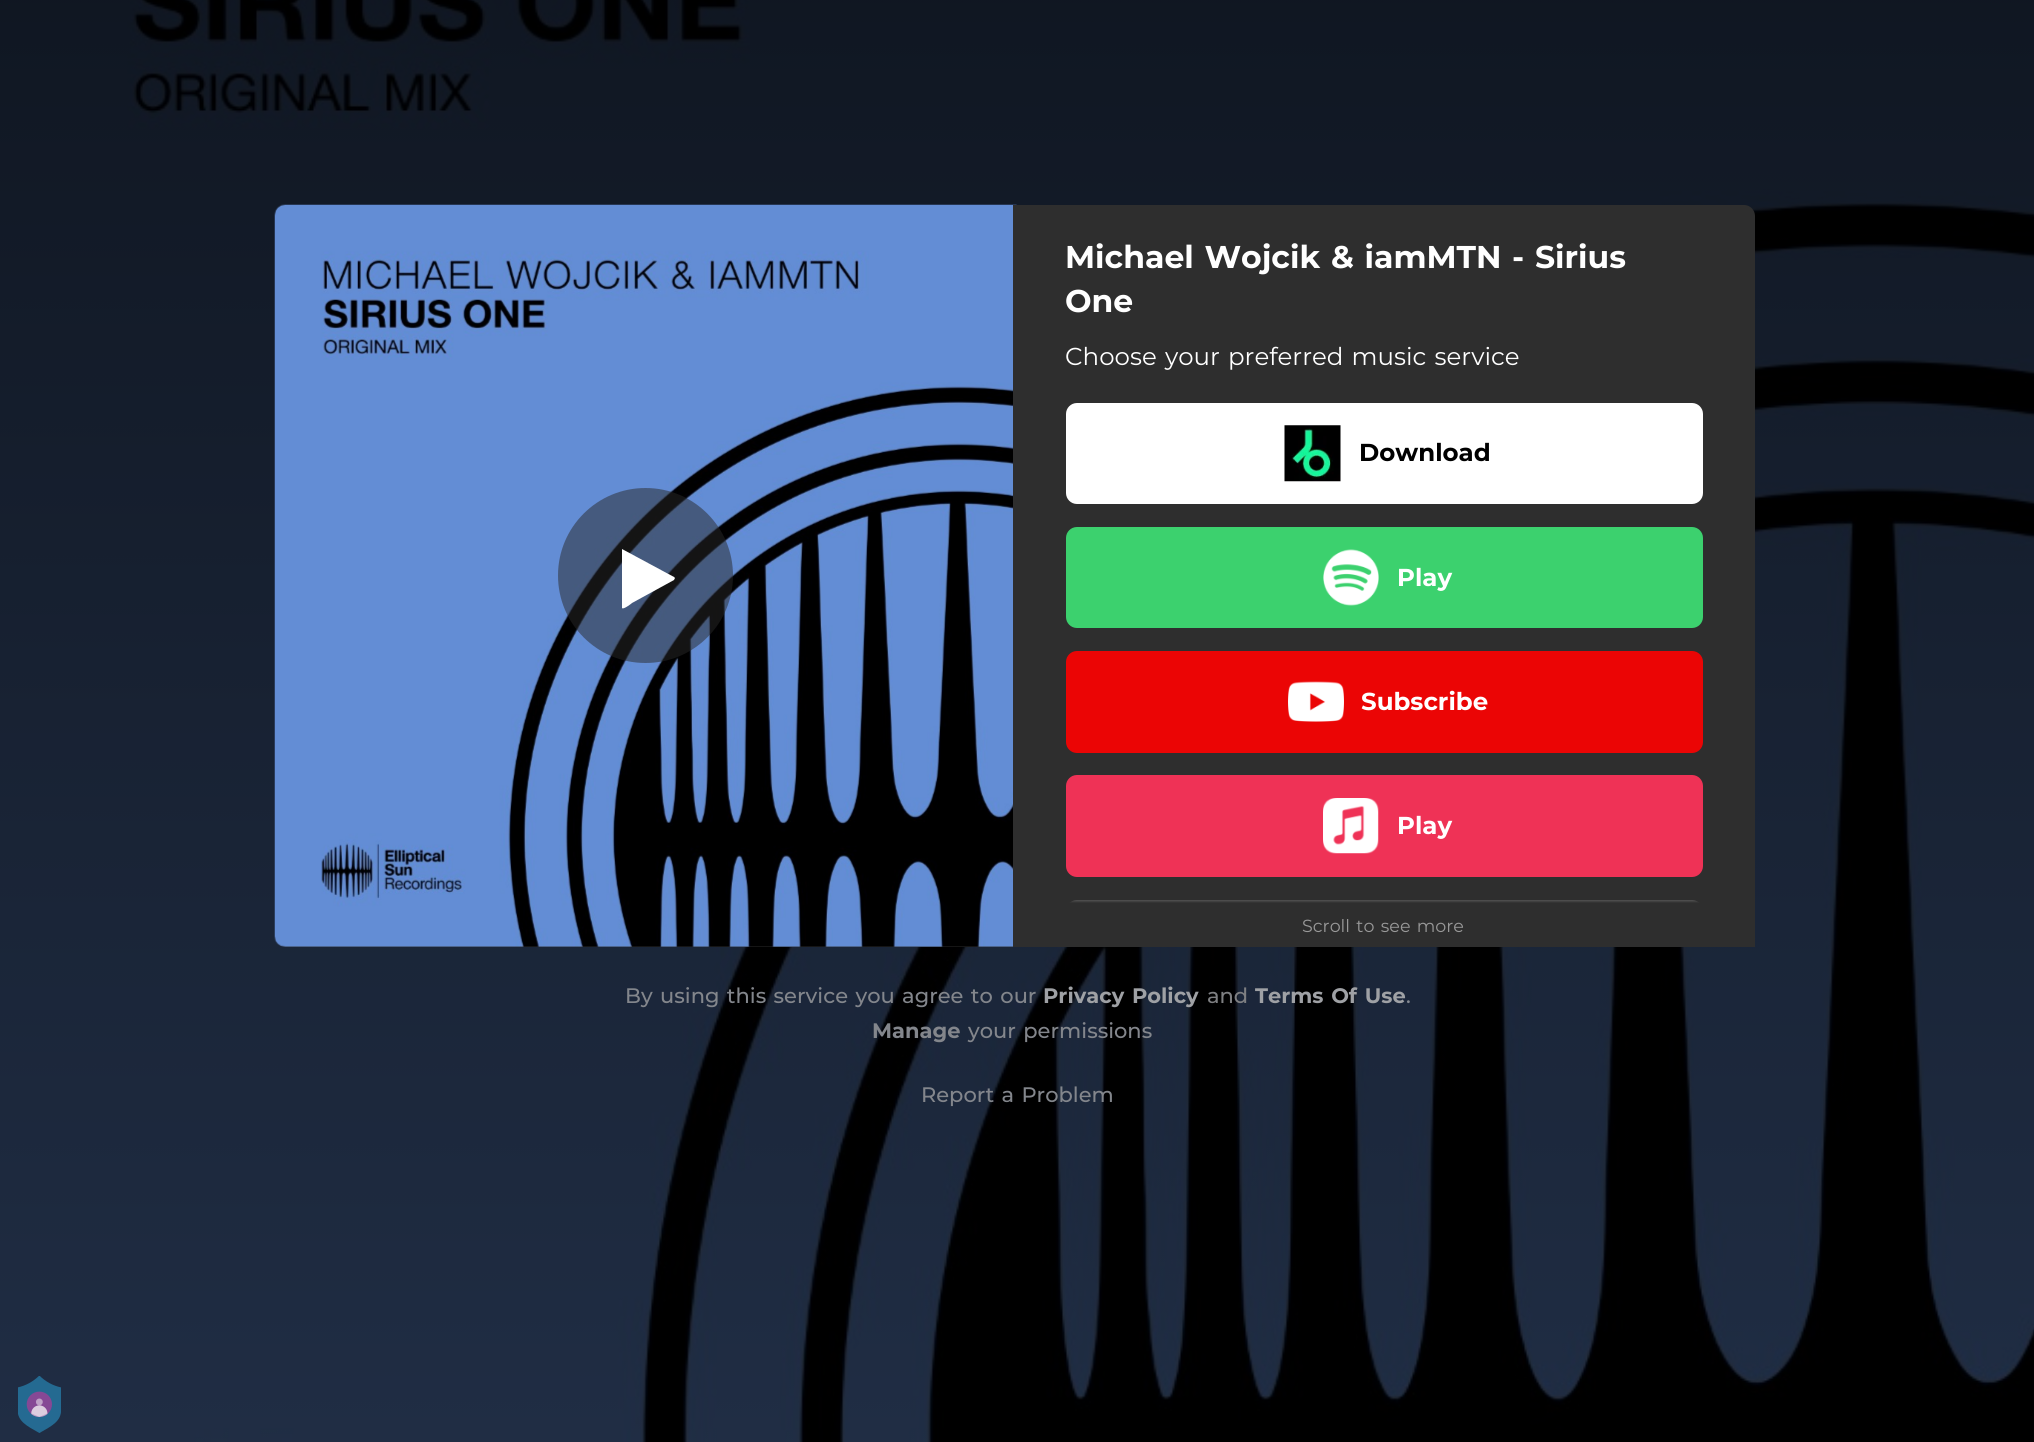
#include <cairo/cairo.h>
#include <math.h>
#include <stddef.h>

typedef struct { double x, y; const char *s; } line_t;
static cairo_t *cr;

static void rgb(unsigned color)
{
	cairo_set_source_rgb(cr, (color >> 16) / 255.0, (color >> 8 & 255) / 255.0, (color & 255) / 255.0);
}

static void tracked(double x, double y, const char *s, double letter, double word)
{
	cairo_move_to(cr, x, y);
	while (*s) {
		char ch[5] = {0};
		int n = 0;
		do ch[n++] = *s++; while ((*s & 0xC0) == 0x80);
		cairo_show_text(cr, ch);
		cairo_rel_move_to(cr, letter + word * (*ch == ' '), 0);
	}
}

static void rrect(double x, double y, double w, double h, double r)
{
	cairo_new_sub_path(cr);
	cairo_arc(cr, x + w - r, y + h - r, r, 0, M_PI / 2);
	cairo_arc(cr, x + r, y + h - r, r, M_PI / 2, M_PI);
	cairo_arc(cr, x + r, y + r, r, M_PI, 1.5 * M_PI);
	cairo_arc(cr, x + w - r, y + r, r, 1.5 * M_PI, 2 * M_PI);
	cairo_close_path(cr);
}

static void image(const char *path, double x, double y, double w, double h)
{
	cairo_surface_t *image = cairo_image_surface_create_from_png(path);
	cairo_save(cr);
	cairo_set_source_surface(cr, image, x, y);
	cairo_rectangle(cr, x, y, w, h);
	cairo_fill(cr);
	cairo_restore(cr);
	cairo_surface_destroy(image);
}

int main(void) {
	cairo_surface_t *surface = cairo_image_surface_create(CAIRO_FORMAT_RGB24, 2034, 1442);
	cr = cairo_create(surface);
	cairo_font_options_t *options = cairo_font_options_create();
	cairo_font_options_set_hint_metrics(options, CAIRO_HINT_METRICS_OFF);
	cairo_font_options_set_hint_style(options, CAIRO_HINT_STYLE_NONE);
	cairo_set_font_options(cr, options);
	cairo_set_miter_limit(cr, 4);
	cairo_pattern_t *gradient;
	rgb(0xffffff);
	cairo_paint(cr);
	image("img/1.png", 0, 0, 2034, 1442);
	rgb(0x2f2f2f);
	cairo_new_path(cr);
	cairo_move_to(cr, 286, 205);
	cairo_line_to(cr, 1017, 205);
	cairo_line_to(cr, 1017, 947);
	cairo_line_to(cr, 286, 947);
	cairo_curve_to(cr, 280, 947, 275, 942, 275, 936);
	cairo_line_to(cr, 275, 216);
	cairo_curve_to(cr, 275, 210, 280, 205, 286, 205);
	cairo_close_path(cr);
	cairo_fill(cr);
	image("img/2.png", 274, 204, 743, 743);
	cairo_set_source_rgba(cr, 0.157, 0.157, 0.157, 0.5);
	cairo_arc(cr, 645.5, 575.5, 87.5, 0, 2 * M_PI);
	cairo_fill(cr);
	rgb(0xffffff);
	cairo_new_path(cr);
	cairo_move_to(cr, 674, 580);
	cairo_line_to(cr, 632, 603);
	cairo_curve_to(cr, 631, 604, 623, 610, 622, 608);
	cairo_line_to(cr, 622, 550);
	cairo_line_to(cr, 622, 549);
	cairo_line_to(cr, 674, 577);
	cairo_line_to(cr, 675, 578);
	cairo_line_to(cr, 674, 580);
	cairo_fill(cr);
	rgb(0x2e2e2e);
	cairo_new_path(cr);
	cairo_move_to(cr, 1013, 205);
	cairo_line_to(cr, 1744, 205);
	cairo_curve_to(cr, 1750, 205, 1755, 210, 1755, 216);
	cairo_line_to(cr, 1755, 936);
	cairo_curve_to(cr, 1755, 942, 1750, 947, 1744, 947);
	cairo_line_to(cr, 1013, 947);
	cairo_close_path(cr);
	cairo_fill(cr);
	rgb(0xffffff);
	rrect(1066, 403, 637, 101, 11);
	cairo_fill(cr);
	image("img/3.png", 1284, 425, 57, 57);
	rgb(0x3cd16e);
	rrect(1066, 527, 637, 101, 11);
	cairo_fill(cr);
	image("img/4.png", 1323, 549, 56, 57);
	rgb(0xeb0505);
	rrect(1066, 651, 637, 102, 11);
	cairo_fill(cr);
	image("img/5.png", 1288, 681, 56, 41);
	rgb(0xef3256);
	rrect(1066, 775, 637, 102, 11);
	cairo_fill(cr);
	image("img/6.png", 1323, 798, 56, 56);
	rgb(0xffffff);
	cairo_new_path(cr);
	cairo_move_to(cr, 1077, 900);
	cairo_line_to(cr, 1692, 900);
	cairo_curve_to(cr, 1698, 900, 1703, 905, 1703, 911);
	cairo_line_to(cr, 1703, 947);
	cairo_line_to(cr, 1066, 947);
	cairo_line_to(cr, 1066, 911);
	cairo_curve_to(cr, 1066, 905, 1071, 900, 1077, 900);
	cairo_close_path(cr);
	cairo_fill(cr);
	gradient = cairo_pattern_create_linear(1384, 903, 1384, 886);
	cairo_pattern_add_color_stop_rgba(gradient, 0, 0.18, 0.18, 0.18, 1);
	cairo_pattern_add_color_stop_rgba(gradient, 1, 0.18, 0.18, 0.18, 0);
	cairo_set_source(cr, gradient);
	cairo_pattern_destroy(gradient);
	cairo_rectangle(cr, 1069, 900, 631, 3);
	cairo_fill(cr);
	rgb(0x2e2e2e);
	cairo_rectangle(cr, 1066, 903, 689, 44);
	cairo_fill(cr);
	image("img/7.png", 18, 1376, 43, 57);
	cairo_select_font_face(cr, "Montserrat", CAIRO_FONT_SLANT_NORMAL, CAIRO_FONT_WEIGHT_BOLD);
	cairo_set_font_size(cr, 31.5);
	rgb(0xffffff);
	tracked(1065, 268, "Michael Wojcik & iamMTN - Sirius", 0, 1.75);
	cairo_move_to(cr, 1065, 312);
	cairo_show_text(cr, "One");
	cairo_select_font_face(cr, "Montserrat", CAIRO_FONT_SLANT_NORMAL, CAIRO_FONT_WEIGHT_NORMAL);
	cairo_set_font_size(cr, 24.5);
	tracked(1065, 365, "Choose your preferred music service", 0, 1.75);
	cairo_select_font_face(cr, "Montserrat", CAIRO_FONT_SLANT_NORMAL, CAIRO_FONT_WEIGHT_BOLD);
	rgb(0x000000);
	cairo_move_to(cr, 1359, 461);
	cairo_show_text(cr, "Download");
	rgb(0xffffff);
	{
		static const line_t items[] = {
			{1397, 586, "Play"},
			{1361, 710, "Subscribe"},
			{1397, 834, "Play"},
		};
		for (size_t i = 0; i < sizeof items / sizeof *items; i++) {
			cairo_move_to(cr, items[i].x, items[i].y);
			cairo_show_text(cr, items[i].s);
		}
	}
	cairo_select_font_face(cr, "Montserrat", CAIRO_FONT_SLANT_NORMAL, CAIRO_FONT_WEIGHT_NORMAL);
	cairo_set_font_size(cr, 17.5);
	rgb(0x999999);
	tracked(1302, 932, "Scroll to see more", 0, 1.75);
	cairo_select_font_face(cr, "Montserrat Medium", CAIRO_FONT_SLANT_NORMAL, CAIRO_FONT_WEIGHT_NORMAL);
	cairo_set_font_size(cr, 21);
	rgb(0x83868c);
	tracked(625, 1003, "By using this service you agree to our", 0, 1.75);
	cairo_select_font_face(cr, "Montserrat", CAIRO_FONT_SLANT_NORMAL, CAIRO_FONT_WEIGHT_BOLD);
	rgb(0x9fa1a5);
	tracked(1043, 1003, "Privacy Policy", 0, 1.75);
	cairo_select_font_face(cr, "Montserrat Medium", CAIRO_FONT_SLANT_NORMAL, CAIRO_FONT_WEIGHT_NORMAL);
	rgb(0x7e7f82);
	cairo_move_to(cr, 1207, 1003);
	cairo_show_text(cr, "and");
	cairo_select_font_face(cr, "Montserrat", CAIRO_FONT_SLANT_NORMAL, CAIRO_FONT_WEIGHT_BOLD);
	rgb(0x9fa1a5);
	tracked(1255, 1003, "Terms Of Use", 0, 1.75);
	cairo_select_font_face(cr, "Montserrat Medium", CAIRO_FONT_SLANT_NORMAL, CAIRO_FONT_WEIGHT_NORMAL);
	rgb(0x858a92);
	cairo_move_to(cr, 1406, 1003);
	cairo_show_text(cr, ".");
	cairo_select_font_face(cr, "Montserrat", CAIRO_FONT_SLANT_NORMAL, CAIRO_FONT_WEIGHT_BOLD);
	rgb(0x83868c);
	cairo_move_to(cr, 872, 1038);
	cairo_show_text(cr, "Manage");
	cairo_select_font_face(cr, "Montserrat Medium", CAIRO_FONT_SLANT_NORMAL, CAIRO_FONT_WEIGHT_NORMAL);
	tracked(968, 1038, "your permissions", 0, 1.75);
	tracked(921, 1102, "Report a Problem", 0, 1.75);
	cairo_surface_write_to_png(surface, "page.png");
	cairo_font_options_destroy(options);
	cairo_destroy(cr);
	cairo_surface_destroy(surface);
	return 0;
}
